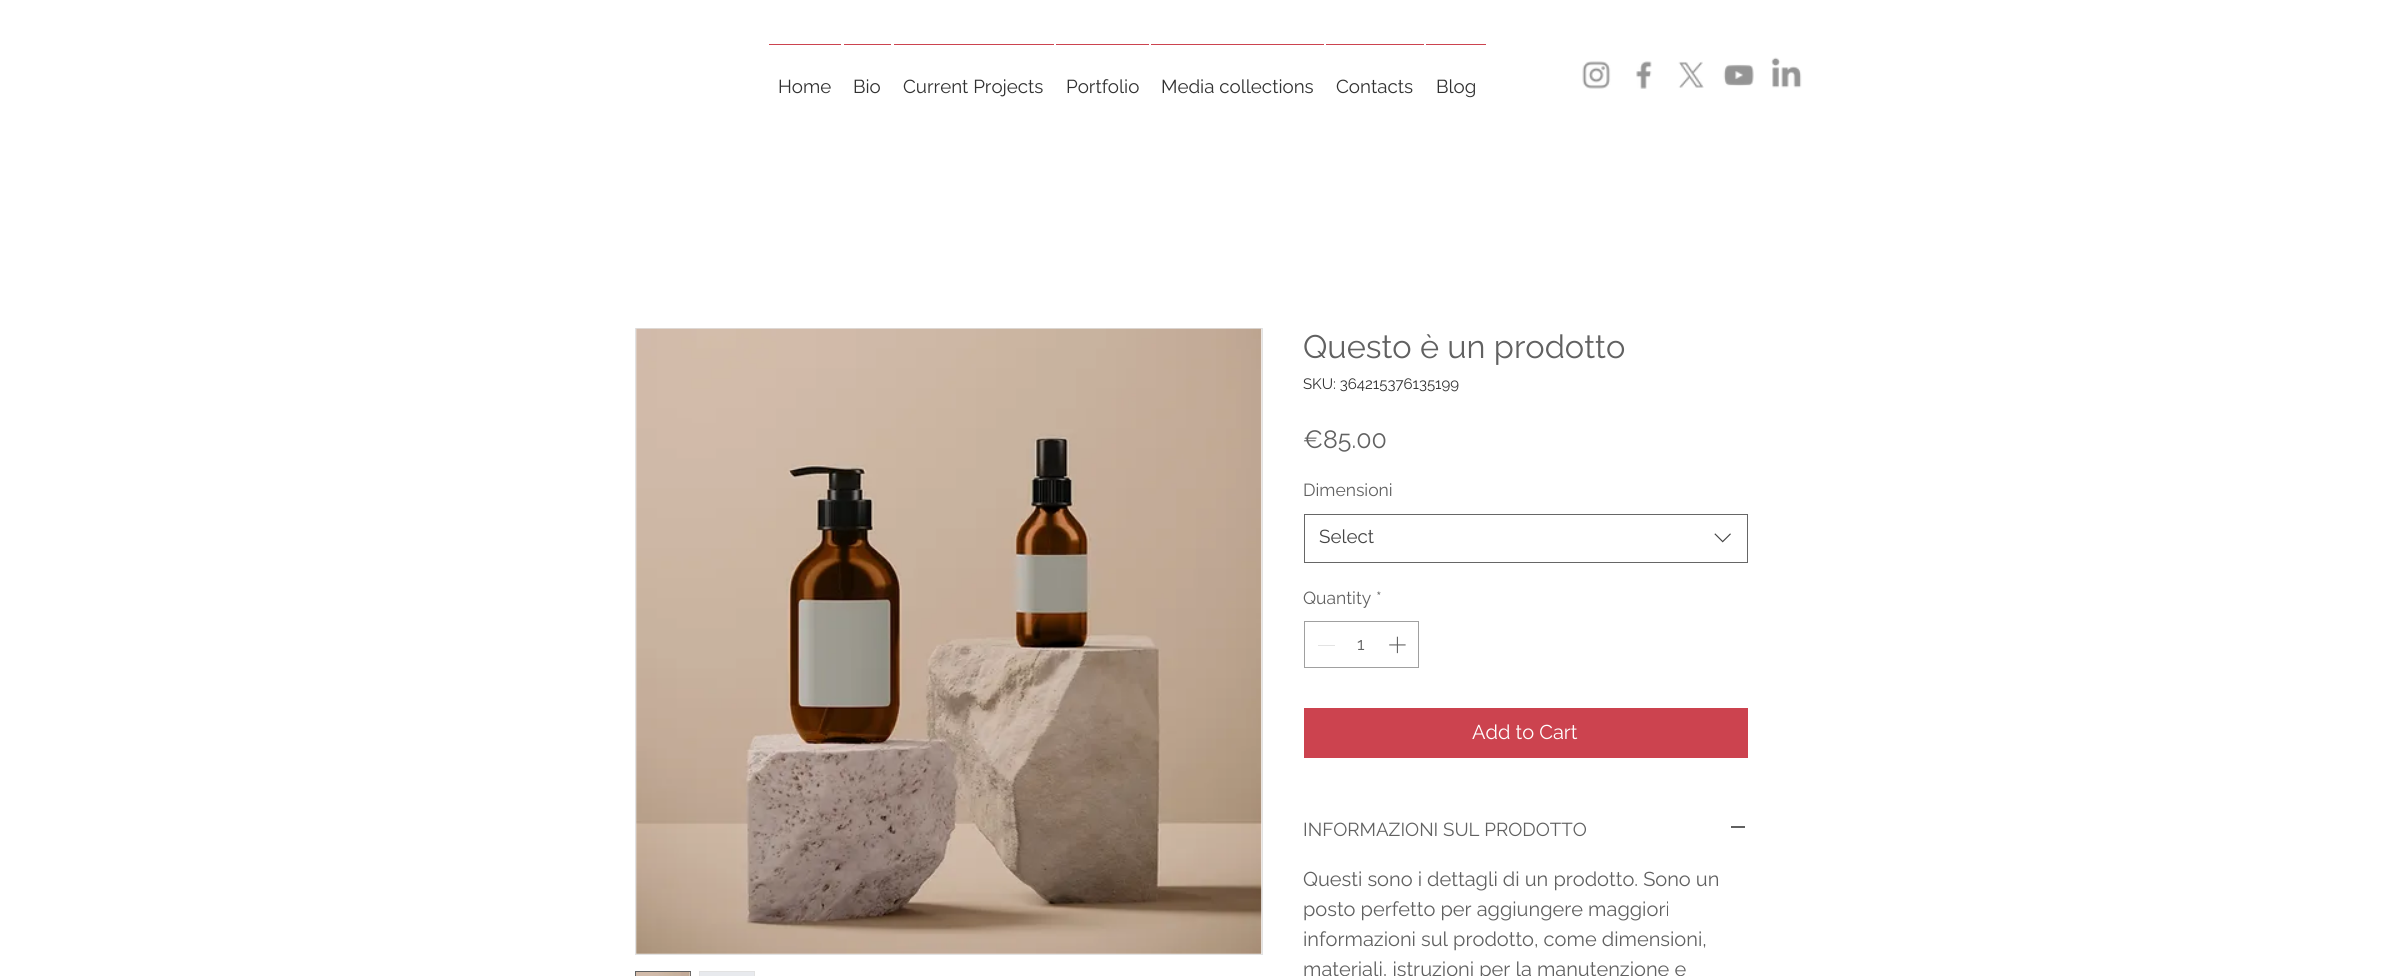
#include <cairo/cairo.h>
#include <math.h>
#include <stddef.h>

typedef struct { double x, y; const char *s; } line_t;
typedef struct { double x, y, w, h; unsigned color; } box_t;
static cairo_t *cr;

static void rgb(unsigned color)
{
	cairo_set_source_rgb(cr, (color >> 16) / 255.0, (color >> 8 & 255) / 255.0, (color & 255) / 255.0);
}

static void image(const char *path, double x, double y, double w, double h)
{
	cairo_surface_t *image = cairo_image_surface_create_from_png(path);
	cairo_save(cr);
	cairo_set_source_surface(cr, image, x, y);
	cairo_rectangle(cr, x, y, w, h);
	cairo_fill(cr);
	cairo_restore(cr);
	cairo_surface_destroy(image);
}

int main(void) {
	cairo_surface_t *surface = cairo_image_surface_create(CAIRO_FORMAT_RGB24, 2381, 976);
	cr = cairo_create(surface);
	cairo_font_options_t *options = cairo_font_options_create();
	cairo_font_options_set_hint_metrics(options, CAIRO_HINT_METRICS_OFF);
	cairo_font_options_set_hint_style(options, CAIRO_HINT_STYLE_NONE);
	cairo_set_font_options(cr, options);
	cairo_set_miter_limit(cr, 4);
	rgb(0xffffff);
	cairo_paint(cr);
	{
		static const box_t items[] = {
			{769, 44, 72, 1, 0xcc434f},
			{844, 44, 47, 1, 0xcc434f},
			{894, 44, 160, 1, 0xcc434f},
			{1056, 44, 93, 1, 0xcc434f},
			{1151, 44, 173, 1, 0xcc434f},
			{1326, 44, 98, 1, 0xcc434f},
			{1426, 44, 60, 1, 0xcc434f},
		};
		for (size_t i = 0; i < sizeof items / sizeof *items; i++) {
			rgb(items[i].color);
			cairo_rectangle(cr, items[i].x, items[i].y, items[i].w, items[i].h);
			cairo_fill(cr);
		}
	}
	image("img/1.png", 1582, 61, 29, 28);
	image("img/2.png", 1636, 61, 16, 28);
	image("img/3.png", 1678, 61, 26, 27);
	image("img/4.png", 1723, 64, 31, 22);
	image("img/5.png", 1771, 57, 31, 31);
	cairo_rectangle(cr, 635.5, 328.5, 627, 626);
	rgb(0xe2e2e2);
	cairo_set_line_width(cr, 1);
	cairo_stroke(cr);
	image("img/6.png", 636, 328, 626, 626);
	cairo_rectangle(cr, 635.5, 971.5, 55, 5);
	rgb(0x616161);
	cairo_stroke(cr);
	image("img/7.png", 636, 972, 55, 4);
	cairo_rectangle(cr, 699.5, 971.5, 55, 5);
	rgb(0xe2e2e2);
	cairo_stroke(cr);
	rgb(0xe8eaee);
	cairo_rectangle(cr, 700, 972, 54, 4);
	cairo_fill(cr);
	cairo_rectangle(cr, 1304.5, 514.5, 443, 48);
	rgb(0x666666);
	cairo_stroke(cr);
	image("img/8.png", 1714, 533, 17, 10);
	cairo_rectangle(cr, 1304.5, 621.5, 114, 46);
	rgb(0xa0a0a0);
	cairo_stroke(cr);
	rgb(0xe3e3e3);
	cairo_rectangle(cr, 1318, 645, 17, 1);
	cairo_fill(cr);
	image("img/9.png", 1389, 636, 17, 18);
	rgb(0xcc434f);
	cairo_rectangle(cr, 1304, 708, 444, 50);
	cairo_fill(cr);
	rgb(0x616161);
	cairo_rectangle(cr, 1731, 826, 14, 2);
	cairo_fill(cr);
	cairo_select_font_face(cr, "Raleway", CAIRO_FONT_SLANT_NORMAL, CAIRO_FONT_WEIGHT_NORMAL);
	cairo_set_font_size(cr, 18.75);
	rgb(0x313131);
	{
		static const line_t items[] = {
			{778, 93, "Home"},
			{853, 93, "Bio"},
			{903, 93, "Current Projects"},
			{1066, 93, "Portfolio"},
			{1161, 93, "Media collections"},
			{1336, 93, "Contacts"},
			{1436, 93, "Blog"},
		};
		for (size_t i = 0; i < sizeof items / sizeof *items; i++) {
			cairo_move_to(cr, items[i].x, items[i].y);
			cairo_show_text(cr, items[i].s);
		}
	}
	cairo_set_font_size(cr, 32.5);
	rgb(0x616161);
	cairo_move_to(cr, 1303, 358);
	cairo_show_text(cr, "Questo è un prodotto");
	cairo_set_font_size(cr, 15);
	rgb(0x313131);
	cairo_move_to(cr, 1303, 389);
	cairo_show_text(cr, "SKU: 364215376135199");
	cairo_set_font_size(cr, 25);
	rgb(0x616161);
	cairo_move_to(cr, 1303, 448);
	cairo_show_text(cr, "€85.00");
	cairo_set_font_size(cr, 17.5);
	cairo_move_to(cr, 1303, 496);
	cairo_show_text(cr, "Dimensioni");
	cairo_set_font_size(cr, 18.75);
	rgb(0x444444);
	cairo_move_to(cr, 1319, 543);
	cairo_show_text(cr, "Select");
	cairo_set_font_size(cr, 17.5);
	rgb(0x616161);
	{
		static const line_t items[] = {
			{1303, 604, "Quantity"},
			{1376, 604, "*"},
			{1357, 650, "1"},
		};
		for (size_t i = 0; i < sizeof items / sizeof *items; i++) {
			cairo_move_to(cr, items[i].x, items[i].y);
			cairo_show_text(cr, items[i].s);
		}
	}
	cairo_set_font_size(cr, 20);
	rgb(0xffffff);
	cairo_move_to(cr, 1472, 739);
	cairo_show_text(cr, "Add to Cart");
	cairo_set_font_size(cr, 18.75);
	rgb(0x616161);
	cairo_move_to(cr, 1303, 836);
	cairo_show_text(cr, "INFORMAZIONI SUL PRODOTTO");
	cairo_set_font_size(cr, 20);
	{
		static const line_t items[] = {
			{1303, 886, "Questi sono i dettagli di un prodotto. Sono un"},
			{1303, 916, "posto perfetto per aggiungere maggiori"},
			{1303, 946, "informazioni sul prodotto, come dimensioni,"},
			{1303, 976, "materiali, istruzioni per la manutenzione e"},
		};
		for (size_t i = 0; i < sizeof items / sizeof *items; i++) {
			cairo_move_to(cr, items[i].x, items[i].y);
			cairo_show_text(cr, items[i].s);
		}
	}
	cairo_surface_write_to_png(surface, "page.png");
	cairo_font_options_destroy(options);
	cairo_destroy(cr);
	cairo_surface_destroy(surface);
	return 0;
}
